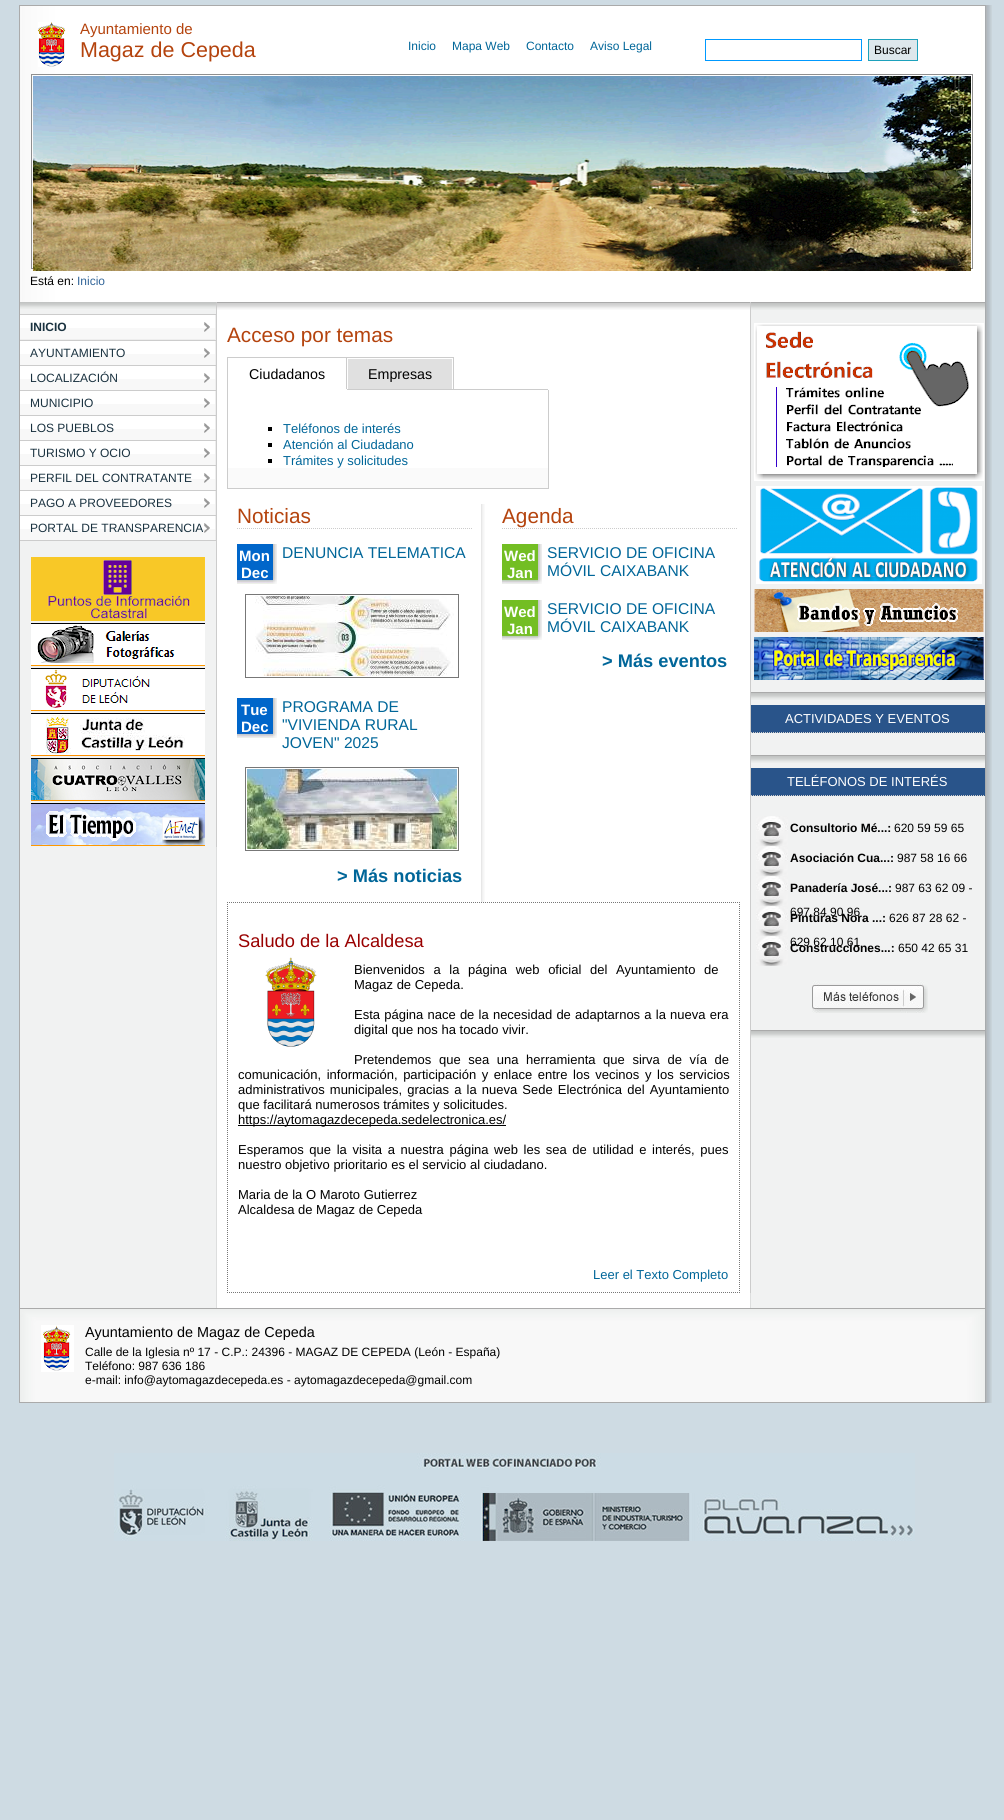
#include <cairo/cairo.h>
#include <math.h>
#include <stddef.h>

typedef struct { double x, y; const char *s; } line_t;
typedef struct { double x, y, w, h; unsigned color; } box_t;
static cairo_t *cr;

static void rgb(unsigned color)
{
	cairo_set_source_rgb(cr, (color >> 16) / 255.0, (color >> 8 & 255) / 255.0, (color & 255) / 255.0);
}

static void tracked(double x, double y, const char *s, double letter, double word)
{
	cairo_move_to(cr, x, y);
	while (*s) {
		char ch[5] = {0};
		int n = 0;
		do ch[n++] = *s++; while ((*s & 0xC0) == 0x80);
		cairo_show_text(cr, ch);
		cairo_rel_move_to(cr, letter + word * (*ch == ' '), 0);
	}
}

static void image(const char *path, double x, double y, double w, double h)
{
	cairo_surface_t *image = cairo_image_surface_create_from_png(path);
	cairo_save(cr);
	cairo_set_source_surface(cr, image, x, y);
	cairo_rectangle(cr, x, y, w, h);
	cairo_fill(cr);
	cairo_restore(cr);
	cairo_surface_destroy(image);
}

int main(void) {
	cairo_surface_t *surface = cairo_image_surface_create(CAIRO_FORMAT_RGB24, 1004, 1820);
	cr = cairo_create(surface);
	cairo_font_options_t *options = cairo_font_options_create();
	cairo_font_options_set_hint_metrics(options, CAIRO_HINT_METRICS_OFF);
	cairo_font_options_set_hint_style(options, CAIRO_HINT_STYLE_NONE);
	cairo_set_font_options(cr, options);
	cairo_set_miter_limit(cr, 4);
	rgb(0xcedbe3);
	cairo_paint(cr);
	image("img/1.png", 19, 5, 973, 1398);
	rgb(0xaaaaaa);
	cairo_rectangle(cr, 20, 5, 965, 1);
	cairo_fill(cr);
	image("img/2.png", 38, 22, 28, 45);
	cairo_rectangle(cr, 705.5, 39.5, 156, 21);
	rgb(0x0099ff);
	cairo_set_line_width(cr, 1);
	cairo_stroke(cr);
	rgb(0xdde7ec);
	cairo_rectangle(cr, 868.5, 39.5, 49, 21);
	cairo_fill_preserve(cr);
	rgb(0x1da1bc);
	cairo_stroke(cr);
	cairo_rectangle(cr, 31.5, 74.5, 941, 194);
	rgb(0x8f8f8f);
	cairo_stroke(cr);
	image("img/3.png", 33, 76, 938, 195);
	image("img/4.png", 20, 310, 965, 998);
	rgb(0xf1f2f2);
	cairo_rectangle(cr, 20, 309, 196, 1);
	cairo_fill(cr);
	image("img/5.png", 20, 302, 196, 7);
	{
		static const box_t items[] = {
			{216, 302, 1, 545, 0xcccccc},
			{20, 314, 196, 1, 0xcccccc},
			{20, 340, 196, 1, 0xcccccc},
			{20, 315, 195, 13, 0xffffff},
			{20, 328, 195, 11, 0xf8f8f8},
			{215, 315, 1, 25, 0xeeeeee},
			{20, 339, 196, 1, 0xeeeeee},
		};
		for (size_t i = 0; i < sizeof items / sizeof *items; i++) {
			rgb(items[i].color);
			cairo_rectangle(cr, items[i].x, items[i].y, items[i].w, items[i].h);
			cairo_fill(cr);
		}
	}
	image("img/6.png", 204, 322, 6, 10);
	{
		static const box_t items[] = {
			{20, 365, 196, 1, 0xcccccc},
			{20, 341, 195, 13, 0xffffff},
			{20, 354, 195, 11, 0xf8f8f8},
			{215, 341, 1, 24, 0xeeeeee},
		};
		for (size_t i = 0; i < sizeof items / sizeof *items; i++) {
			rgb(items[i].color);
			cairo_rectangle(cr, items[i].x, items[i].y, items[i].w, items[i].h);
			cairo_fill(cr);
		}
	}
	image("img/6.png", 204, 348, 6, 10);
	{
		static const box_t items[] = {
			{20, 390, 196, 1, 0xcccccc},
			{20, 366, 195, 13, 0xffffff},
			{20, 379, 195, 11, 0xf8f8f8},
			{215, 366, 1, 24, 0xeeeeee},
		};
		for (size_t i = 0; i < sizeof items / sizeof *items; i++) {
			rgb(items[i].color);
			cairo_rectangle(cr, items[i].x, items[i].y, items[i].w, items[i].h);
			cairo_fill(cr);
		}
	}
	image("img/6.png", 204, 373, 6, 10);
	{
		static const box_t items[] = {
			{20, 415, 196, 1, 0xcccccc},
			{20, 391, 195, 13, 0xffffff},
			{20, 404, 195, 11, 0xf8f8f8},
			{215, 391, 1, 24, 0xeeeeee},
		};
		for (size_t i = 0; i < sizeof items / sizeof *items; i++) {
			rgb(items[i].color);
			cairo_rectangle(cr, items[i].x, items[i].y, items[i].w, items[i].h);
			cairo_fill(cr);
		}
	}
	image("img/6.png", 204, 398, 6, 10);
	{
		static const box_t items[] = {
			{20, 440, 196, 1, 0xcccccc},
			{20, 416, 195, 13, 0xffffff},
			{20, 429, 195, 11, 0xf8f8f8},
			{215, 416, 1, 24, 0xeeeeee},
		};
		for (size_t i = 0; i < sizeof items / sizeof *items; i++) {
			rgb(items[i].color);
			cairo_rectangle(cr, items[i].x, items[i].y, items[i].w, items[i].h);
			cairo_fill(cr);
		}
	}
	image("img/6.png", 204, 423, 6, 10);
	{
		static const box_t items[] = {
			{20, 465, 196, 1, 0xcccccc},
			{20, 441, 195, 13, 0xffffff},
			{20, 454, 195, 11, 0xf8f8f8},
			{215, 441, 1, 24, 0xeeeeee},
		};
		for (size_t i = 0; i < sizeof items / sizeof *items; i++) {
			rgb(items[i].color);
			cairo_rectangle(cr, items[i].x, items[i].y, items[i].w, items[i].h);
			cairo_fill(cr);
		}
	}
	image("img/6.png", 204, 448, 6, 10);
	{
		static const box_t items[] = {
			{20, 490, 196, 1, 0xcccccc},
			{20, 466, 195, 13, 0xffffff},
			{20, 479, 195, 11, 0xf8f8f8},
			{215, 466, 1, 24, 0xeeeeee},
		};
		for (size_t i = 0; i < sizeof items / sizeof *items; i++) {
			rgb(items[i].color);
			cairo_rectangle(cr, items[i].x, items[i].y, items[i].w, items[i].h);
			cairo_fill(cr);
		}
	}
	image("img/6.png", 204, 473, 6, 10);
	{
		static const box_t items[] = {
			{20, 515, 196, 1, 0xcccccc},
			{20, 491, 195, 13, 0xffffff},
			{20, 504, 195, 11, 0xf8f8f8},
			{215, 491, 1, 24, 0xeeeeee},
		};
		for (size_t i = 0; i < sizeof items / sizeof *items; i++) {
			rgb(items[i].color);
			cairo_rectangle(cr, items[i].x, items[i].y, items[i].w, items[i].h);
			cairo_fill(cr);
		}
	}
	image("img/6.png", 204, 498, 6, 10);
	{
		static const box_t items[] = {
			{20, 540, 196, 1, 0xcccccc},
			{20, 516, 195, 13, 0xffffff},
			{20, 529, 195, 11, 0xf8f8f8},
			{215, 516, 1, 24, 0xeeeeee},
		};
		for (size_t i = 0; i < sizeof items / sizeof *items; i++) {
			rgb(items[i].color);
			cairo_rectangle(cr, items[i].x, items[i].y, items[i].w, items[i].h);
			cairo_fill(cr);
		}
	}
	image("img/6.png", 204, 523, 6, 10);
	image("img/7.png", 31, 557, 174, 64);
	image("img/8.png", 31, 623, 174, 43);
	image("img/9.png", 31, 668, 174, 43);
	image("img/10.png", 31, 713, 174, 43);
	image("img/11.png", 31, 758, 174, 43);
	image("img/12.png", 31, 803, 174, 43);
	image("img/13.png", 217, 303, 533, 7);
	{
		static const box_t items[] = {
			{217, 302, 768, 1, 0xaaaaaa},
			{750, 302, 1, 991, 0xcccccc},
			{454, 389, 94, 1, 0xcccccc},
			{227, 357, 1, 33, 0xcccccc},
			{228, 357, 226, 1, 0xcccccc},
			{346, 357, 1, 33, 0xcccccc},
			{346, 389, 1, 1, 0xffffff},
			{348, 359, 104, 30, 0xe0e0e0},
			{453, 357, 1, 33, 0xcccccc},
			{347, 389, 107, 1, 0xcccccc},
			{228, 468, 320, 20, 0xfafafa},
			{548, 390, 1, 99, 0xcccccc},
			{227, 488, 322, 1, 0xcccccc},
			{227, 390, 1, 99, 0xcccccc},
			{268, 427, 4, 4, 0x000000},
			{268, 443, 4, 4, 0x000000},
			{268, 459, 4, 4, 0x000000},
		};
		for (size_t i = 0; i < sizeof items / sizeof *items; i++) {
			rgb(items[i].color);
			cairo_rectangle(cr, items[i].x, items[i].y, items[i].w, items[i].h);
			cairo_fill(cr);
		}
	}
	image("img/14.png", 481, 504, 4, 398);
	cairo_new_path(cr);
	cairo_move_to(cr, 237, 528.5);
	cairo_line_to(cr, 472, 528.5);
	rgb(0xcccccc);
	cairo_set_dash(cr, (double[]){1, 1}, 2, 0);
	cairo_stroke(cr);
	image("img/15.png", 237, 544, 40, 40);
	cairo_rectangle(cr, 245.5, 594.5, 213, 83);
	rgb(0x777777);
	cairo_set_dash(cr, NULL, 0, 0);
	cairo_stroke(cr);
	image("img/16.png", 255, 596, 199, 80);
	image("img/15.png", 237, 698, 40, 40);
	cairo_rectangle(cr, 245.5, 767.5, 213, 83);
	cairo_stroke(cr);
	image("img/17.png", 247, 769, 210, 80);
	cairo_new_path(cr);
	cairo_move_to(cr, 502, 528.5);
	cairo_line_to(cr, 737, 528.5);
	rgb(0xcccccc);
	cairo_set_dash(cr, (double[]){1, 1}, 2, 0);
	cairo_stroke(cr);
	image("img/18.png", 502, 544, 40, 40);
	image("img/18.png", 502, 600, 40, 40);
	cairo_new_path(cr);
	cairo_move_to(cr, 227, 902.5);
	cairo_line_to(cr, 740, 902.5);
	rgb(0x777777);
	cairo_stroke(cr);
	cairo_new_path(cr);
	cairo_move_to(cr, 739.5, 902);
	cairo_line_to(cr, 739.5, 1293);
	cairo_stroke(cr);
	cairo_new_path(cr);
	cairo_move_to(cr, 227, 1292.5);
	cairo_line_to(cr, 740, 1292.5);
	cairo_stroke(cr);
	cairo_new_path(cr);
	cairo_move_to(cr, 227.5, 902);
	cairo_line_to(cr, 227.5, 1293);
	cairo_stroke(cr);
	image("img/19.png", 265, 957, 52, 90);
	rgb(0x000000);
	cairo_rectangle(cr, 238, 1125, 268, 1);
	cairo_fill(cr);
	image("img/20.png", 751, 303, 234, 7);
	image("img/21.png", 754, 323, 230, 158);
	image("img/22.png", 756, 486, 226, 98);
	image("img/23.png", 754, 589, 230, 43);
	image("img/24.png", 754, 637, 230, 43);
	image("img/20.png", 751, 693, 234, 7);
	rgb(0xaaaaaa);
	cairo_rectangle(cr, 751, 692, 234, 1);
	cairo_fill(cr);
	rgb(0x29548a);
	cairo_rectangle(cr, 751, 705, 234, 28);
	cairo_fill(cr);
	cairo_new_path(cr);
	cairo_move_to(cr, 751, 732.5);
	cairo_line_to(cr, 985, 732.5);
	rgb(0xcccccc);
	cairo_stroke(cr);
	image("img/20.png", 751, 756, 234, 7);
	rgb(0xaaaaaa);
	cairo_rectangle(cr, 751, 755, 234, 1);
	cairo_fill(cr);
	rgb(0x29548a);
	cairo_rectangle(cr, 751, 768, 234, 28);
	cairo_fill(cr);
	cairo_new_path(cr);
	cairo_move_to(cr, 751, 795.5);
	cairo_line_to(cr, 985, 795.5);
	rgb(0xcccccc);
	cairo_stroke(cr);
	image("img/25.png", 756, 816, 32, 30);
	image("img/25.png", 756, 846, 32, 30);
	image("img/25.png", 756, 876, 32, 30);
	image("img/25.png", 756, 906, 32, 30);
	image("img/25.png", 756, 936, 32, 30);
	image("img/26.png", 812, 981, 116, 32);
	image("img/20.png", 751, 1031, 234, 7);
	rgb(0xaaaaaa);
	cairo_rectangle(cr, 751, 1030, 234, 1);
	cairo_fill(cr);
	image("img/27.png", 20, 1309, 965, 93);
	cairo_rectangle(cr, 20, 1308, 965, 1);
	cairo_fill(cr);
	cairo_rectangle(cr, 20, 1402, 965, 1);
	cairo_fill(cr);
	image("img/28.png", 41, 1325, 33, 47);
	image("img/29.png", 114, 1453, 801, 88);
	cairo_select_font_face(cr, "Liberation Sans", CAIRO_FONT_SLANT_NORMAL, CAIRO_FONT_WEIGHT_NORMAL);
	cairo_set_font_size(cr, 15);
	rgb(0xb4430d);
	cairo_move_to(cr, 80, 34);
	cairo_show_text(cr, "Ayuntamiento de");
	cairo_set_font_size(cr, 21.5);
	cairo_move_to(cr, 80, 57);
	cairo_show_text(cr, "Magaz de Cepeda");
	cairo_set_font_size(cr, 12);
	rgb(0x006699);
	{
		static const line_t items[] = {
			{408, 50, "Inicio"},
			{452, 50, "Mapa Web"},
			{526, 50, "Contacto"},
			{590, 50, "Aviso Legal"},
		};
		for (size_t i = 0; i < sizeof items / sizeof *items; i++) {
			cairo_move_to(cr, items[i].x, items[i].y);
			cairo_show_text(cr, items[i].s);
		}
	}
	rgb(0x000000);
	cairo_move_to(cr, 874, 54);
	cairo_show_text(cr, "Buscar");
	cairo_move_to(cr, 30, 285);
	cairo_show_text(cr, "Está en:");
	rgb(0x336699);
	cairo_move_to(cr, 77, 285);
	cairo_show_text(cr, "Inicio");
	cairo_select_font_face(cr, "Liberation Sans", CAIRO_FONT_SLANT_NORMAL, CAIRO_FONT_WEIGHT_BOLD);
	rgb(0x1a3240);
	cairo_move_to(cr, 30, 331);
	cairo_show_text(cr, "INICIO");
	cairo_select_font_face(cr, "Liberation Sans", CAIRO_FONT_SLANT_NORMAL, CAIRO_FONT_WEIGHT_NORMAL);
	{
		static const line_t items[] = {
			{30, 357, "AYUNTAMIENTO"},
			{30, 382, "LOCALIZACIÓN"},
			{30, 407, "MUNICIPIO"},
			{30, 432, "LOS PUEBLOS"},
			{30, 457, "TURISMO Y OCIO"},
			{30, 482, "PERFIL DEL CONTRATANTE"},
			{30, 507, "PAGO A PROVEEDORES"},
			{30, 532, "PORTAL DE TRANSPARENCIA"},
		};
		for (size_t i = 0; i < sizeof items / sizeof *items; i++) {
			cairo_move_to(cr, items[i].x, items[i].y);
			cairo_show_text(cr, items[i].s);
		}
	}
	cairo_set_font_size(cr, 20.75);
	rgb(0xb4430d);
	cairo_move_to(cr, 227, 342);
	cairo_show_text(cr, "Acceso por temas");
	cairo_set_font_size(cr, 14.25);
	rgb(0x000000);
	cairo_move_to(cr, 249, 379);
	cairo_show_text(cr, "Ciudadanos");
	cairo_move_to(cr, 368, 379);
	cairo_show_text(cr, "Empresas");
	cairo_set_font_size(cr, 13);
	rgb(0x006699);
	{
		static const line_t items[] = {
			{283, 433, "Teléfonos de interés"},
			{283, 449, "Atención al Ciudadano"},
			{283, 465, "Trámites y solicitudes"},
		};
		for (size_t i = 0; i < sizeof items / sizeof *items; i++) {
			cairo_move_to(cr, items[i].x, items[i].y);
			cairo_show_text(cr, items[i].s);
		}
	}
	cairo_set_font_size(cr, 20.75);
	rgb(0xb4430d);
	cairo_move_to(cr, 237, 523);
	cairo_show_text(cr, "Noticias");
	cairo_select_font_face(cr, "Liberation Sans", CAIRO_FONT_SLANT_NORMAL, CAIRO_FONT_WEIGHT_BOLD);
	cairo_set_font_size(cr, 15);
	rgb(0xffffff);
	cairo_move_to(cr, 239, 561);
	cairo_show_text(cr, "Mon");
	cairo_move_to(cr, 241, 578);
	cairo_show_text(cr, "Dec");
	cairo_select_font_face(cr, "Liberation Sans", CAIRO_FONT_SLANT_NORMAL, CAIRO_FONT_WEIGHT_NORMAL);
	cairo_set_font_size(cr, 15.6);
	rgb(0x006699);
	cairo_move_to(cr, 282, 558);
	cairo_show_text(cr, "DENUNCIA TELEMATICA");
	cairo_select_font_face(cr, "Liberation Sans", CAIRO_FONT_SLANT_NORMAL, CAIRO_FONT_WEIGHT_BOLD);
	cairo_set_font_size(cr, 15);
	rgb(0xffffff);
	cairo_move_to(cr, 241, 715);
	cairo_show_text(cr, "Tue");
	cairo_move_to(cr, 241, 732);
	cairo_show_text(cr, "Dec");
	cairo_select_font_face(cr, "Liberation Sans", CAIRO_FONT_SLANT_NORMAL, CAIRO_FONT_WEIGHT_NORMAL);
	cairo_set_font_size(cr, 15.6);
	rgb(0x006699);
	{
		static const line_t items[] = {
			{282, 712, "PROGRAMA DE"},
			{282, 730, "\"VIVIENDA RURAL"},
			{282, 748, "JOVEN\" 2025"},
		};
		for (size_t i = 0; i < sizeof items / sizeof *items; i++) {
			cairo_move_to(cr, items[i].x, items[i].y);
			cairo_show_text(cr, items[i].s);
		}
	}
	cairo_select_font_face(cr, "Liberation Sans", CAIRO_FONT_SLANT_NORMAL, CAIRO_FONT_WEIGHT_BOLD);
	cairo_set_font_size(cr, 18.25);
	cairo_move_to(cr, 337, 882);
	cairo_show_text(cr, "> Más noticias");
	cairo_select_font_face(cr, "Liberation Sans", CAIRO_FONT_SLANT_NORMAL, CAIRO_FONT_WEIGHT_NORMAL);
	cairo_set_font_size(cr, 20.75);
	rgb(0xb4430d);
	cairo_move_to(cr, 502, 523);
	cairo_show_text(cr, "Agenda");
	cairo_select_font_face(cr, "Liberation Sans", CAIRO_FONT_SLANT_NORMAL, CAIRO_FONT_WEIGHT_BOLD);
	cairo_set_font_size(cr, 15);
	rgb(0xffffff);
	cairo_move_to(cr, 504, 561);
	cairo_show_text(cr, "Wed");
	cairo_move_to(cr, 507, 578);
	cairo_show_text(cr, "Jan");
	cairo_select_font_face(cr, "Liberation Sans", CAIRO_FONT_SLANT_NORMAL, CAIRO_FONT_WEIGHT_NORMAL);
	cairo_set_font_size(cr, 15.6);
	rgb(0x006699);
	cairo_move_to(cr, 547, 558);
	cairo_show_text(cr, "SERVICIO DE OFICINA");
	cairo_move_to(cr, 547, 576);
	cairo_show_text(cr, "MÓVIL CAIXABANK");
	cairo_select_font_face(cr, "Liberation Sans", CAIRO_FONT_SLANT_NORMAL, CAIRO_FONT_WEIGHT_BOLD);
	cairo_set_font_size(cr, 15);
	rgb(0xffffff);
	cairo_move_to(cr, 504, 617);
	cairo_show_text(cr, "Wed");
	cairo_move_to(cr, 507, 634);
	cairo_show_text(cr, "Jan");
	cairo_select_font_face(cr, "Liberation Sans", CAIRO_FONT_SLANT_NORMAL, CAIRO_FONT_WEIGHT_NORMAL);
	cairo_set_font_size(cr, 15.6);
	rgb(0x006699);
	cairo_move_to(cr, 547, 614);
	cairo_show_text(cr, "SERVICIO DE OFICINA");
	cairo_move_to(cr, 547, 632);
	cairo_show_text(cr, "MÓVIL CAIXABANK");
	cairo_select_font_face(cr, "Liberation Sans", CAIRO_FONT_SLANT_NORMAL, CAIRO_FONT_WEIGHT_BOLD);
	cairo_set_font_size(cr, 18.25);
	cairo_move_to(cr, 602, 667);
	cairo_show_text(cr, "> Más eventos");
	cairo_select_font_face(cr, "Liberation Sans", CAIRO_FONT_SLANT_NORMAL, CAIRO_FONT_WEIGHT_NORMAL);
	rgb(0x990000);
	cairo_move_to(cr, 238, 947);
	cairo_show_text(cr, "Saludo de la Alcaldesa");
	cairo_set_font_size(cr, 13);
	rgb(0x000000);
	tracked(354, 974, "Bienvenidos a la página web oficial del Ayuntamiento de", 0, 5);
	cairo_move_to(cr, 354, 989);
	cairo_show_text(cr, "Magaz de Cepeda.");
	tracked(354, 1019, "Esta página nace de la necesidad de adaptarnos a la nueva era", 0, 0.6);
	cairo_move_to(cr, 354, 1034);
	cairo_show_text(cr, "digital que nos ha tocado vivir.");
	tracked(354, 1064, "Pretendemos que sea una herramienta que sirva de vía de", 0, 4);
	tracked(238, 1079, "comunicación, información, participación y enlace entre los vecinos y los servicios", 0, 2);
	tracked(238, 1094, "administrativos municipales, gracias a la nueva Sede Electrónica del Ayuntamiento", 0, 1.5);
	cairo_move_to(cr, 238, 1109);
	cairo_show_text(cr, "que facilitará numerosos trámites y solicitudes.");
	cairo_move_to(cr, 238, 1124);
	cairo_show_text(cr, "https://aytomagazdecepeda.sedelectronica.es/");
	tracked(238, 1154, "Esperamos que la visita a nuestra página web les sea de utilidad e interés, pues", 0, 2);
	{
		static const line_t items[] = {
			{238, 1169, "nuestro objetivo prioritario es el servicio al ciudadano."},
			{238, 1199, "Maria de la O Maroto Gutierrez"},
			{238, 1214, "Alcaldesa de Magaz de Cepeda"},
		};
		for (size_t i = 0; i < sizeof items / sizeof *items; i++) {
			cairo_move_to(cr, items[i].x, items[i].y);
			cairo_show_text(cr, items[i].s);
		}
	}
	rgb(0x006699);
	cairo_move_to(cr, 593, 1279);
	cairo_show_text(cr, "Leer el Texto Completo");
	rgb(0xffffff);
	cairo_move_to(cr, 785, 723);
	cairo_show_text(cr, "ACTIVIDADES Y EVENTOS");
	cairo_move_to(cr, 787, 786);
	cairo_show_text(cr, "TELÉFONOS DE INTERÉS");
	cairo_select_font_face(cr, "Liberation Sans", CAIRO_FONT_SLANT_NORMAL, CAIRO_FONT_WEIGHT_BOLD);
	cairo_set_font_size(cr, 12);
	rgb(0x000000);
	cairo_move_to(cr, 790, 832);
	cairo_show_text(cr, "Consultorio Mé...:");
	cairo_select_font_face(cr, "Liberation Sans", CAIRO_FONT_SLANT_NORMAL, CAIRO_FONT_WEIGHT_NORMAL);
	cairo_move_to(cr, 894, 832);
	cairo_show_text(cr, "620 59 59 65");
	cairo_select_font_face(cr, "Liberation Sans", CAIRO_FONT_SLANT_NORMAL, CAIRO_FONT_WEIGHT_BOLD);
	cairo_move_to(cr, 790, 862);
	cairo_show_text(cr, "Asociación Cua...:");
	cairo_select_font_face(cr, "Liberation Sans", CAIRO_FONT_SLANT_NORMAL, CAIRO_FONT_WEIGHT_NORMAL);
	cairo_move_to(cr, 897, 862);
	cairo_show_text(cr, "987 58 16 66");
	cairo_select_font_face(cr, "Liberation Sans", CAIRO_FONT_SLANT_NORMAL, CAIRO_FONT_WEIGHT_BOLD);
	cairo_move_to(cr, 790, 892);
	cairo_show_text(cr, "Panadería José...:");
	cairo_select_font_face(cr, "Liberation Sans", CAIRO_FONT_SLANT_NORMAL, CAIRO_FONT_WEIGHT_NORMAL);
	cairo_move_to(cr, 895, 892);
	cairo_show_text(cr, "987 63 62 09 -");
	cairo_move_to(cr, 790, 916);
	cairo_show_text(cr, "697 84 90 96");
	cairo_select_font_face(cr, "Liberation Sans", CAIRO_FONT_SLANT_NORMAL, CAIRO_FONT_WEIGHT_BOLD);
	cairo_move_to(cr, 790, 922);
	cairo_show_text(cr, "Pinturas Nora ...:");
	cairo_select_font_face(cr, "Liberation Sans", CAIRO_FONT_SLANT_NORMAL, CAIRO_FONT_WEIGHT_NORMAL);
	cairo_move_to(cr, 889, 922);
	cairo_show_text(cr, "626 87 28 62 -");
	cairo_move_to(cr, 790, 946);
	cairo_show_text(cr, "629 62 10 61");
	cairo_select_font_face(cr, "Liberation Sans", CAIRO_FONT_SLANT_NORMAL, CAIRO_FONT_WEIGHT_BOLD);
	cairo_move_to(cr, 790, 952);
	cairo_show_text(cr, "Construcciones...:");
	cairo_select_font_face(cr, "Liberation Sans", CAIRO_FONT_SLANT_NORMAL, CAIRO_FONT_WEIGHT_NORMAL);
	cairo_move_to(cr, 898, 952);
	cairo_show_text(cr, "650 42 65 31");
	cairo_set_font_size(cr, 14.4);
	cairo_move_to(cr, 85, 1337);
	cairo_show_text(cr, "Ayuntamiento de Magaz de Cepeda");
	cairo_set_font_size(cr, 12);
	{
		static const line_t items[] = {
			{85, 1356, "Calle de la Iglesia nº 17 - C.P.: 24396 - MAGAZ DE CEPEDA (León - España)"},
			{85, 1370, "Teléfono: 987 636 186"},
			{85, 1384, "e-mail: info@aytomagazdecepeda.es - aytomagazdecepeda@gmail.com"},
		};
		for (size_t i = 0; i < sizeof items / sizeof *items; i++) {
			cairo_move_to(cr, items[i].x, items[i].y);
			cairo_show_text(cr, items[i].s);
		}
	}
	cairo_surface_write_to_png(surface, "page.png");
	cairo_font_options_destroy(options);
	cairo_destroy(cr);
	cairo_surface_destroy(surface);
	return 0;
}
